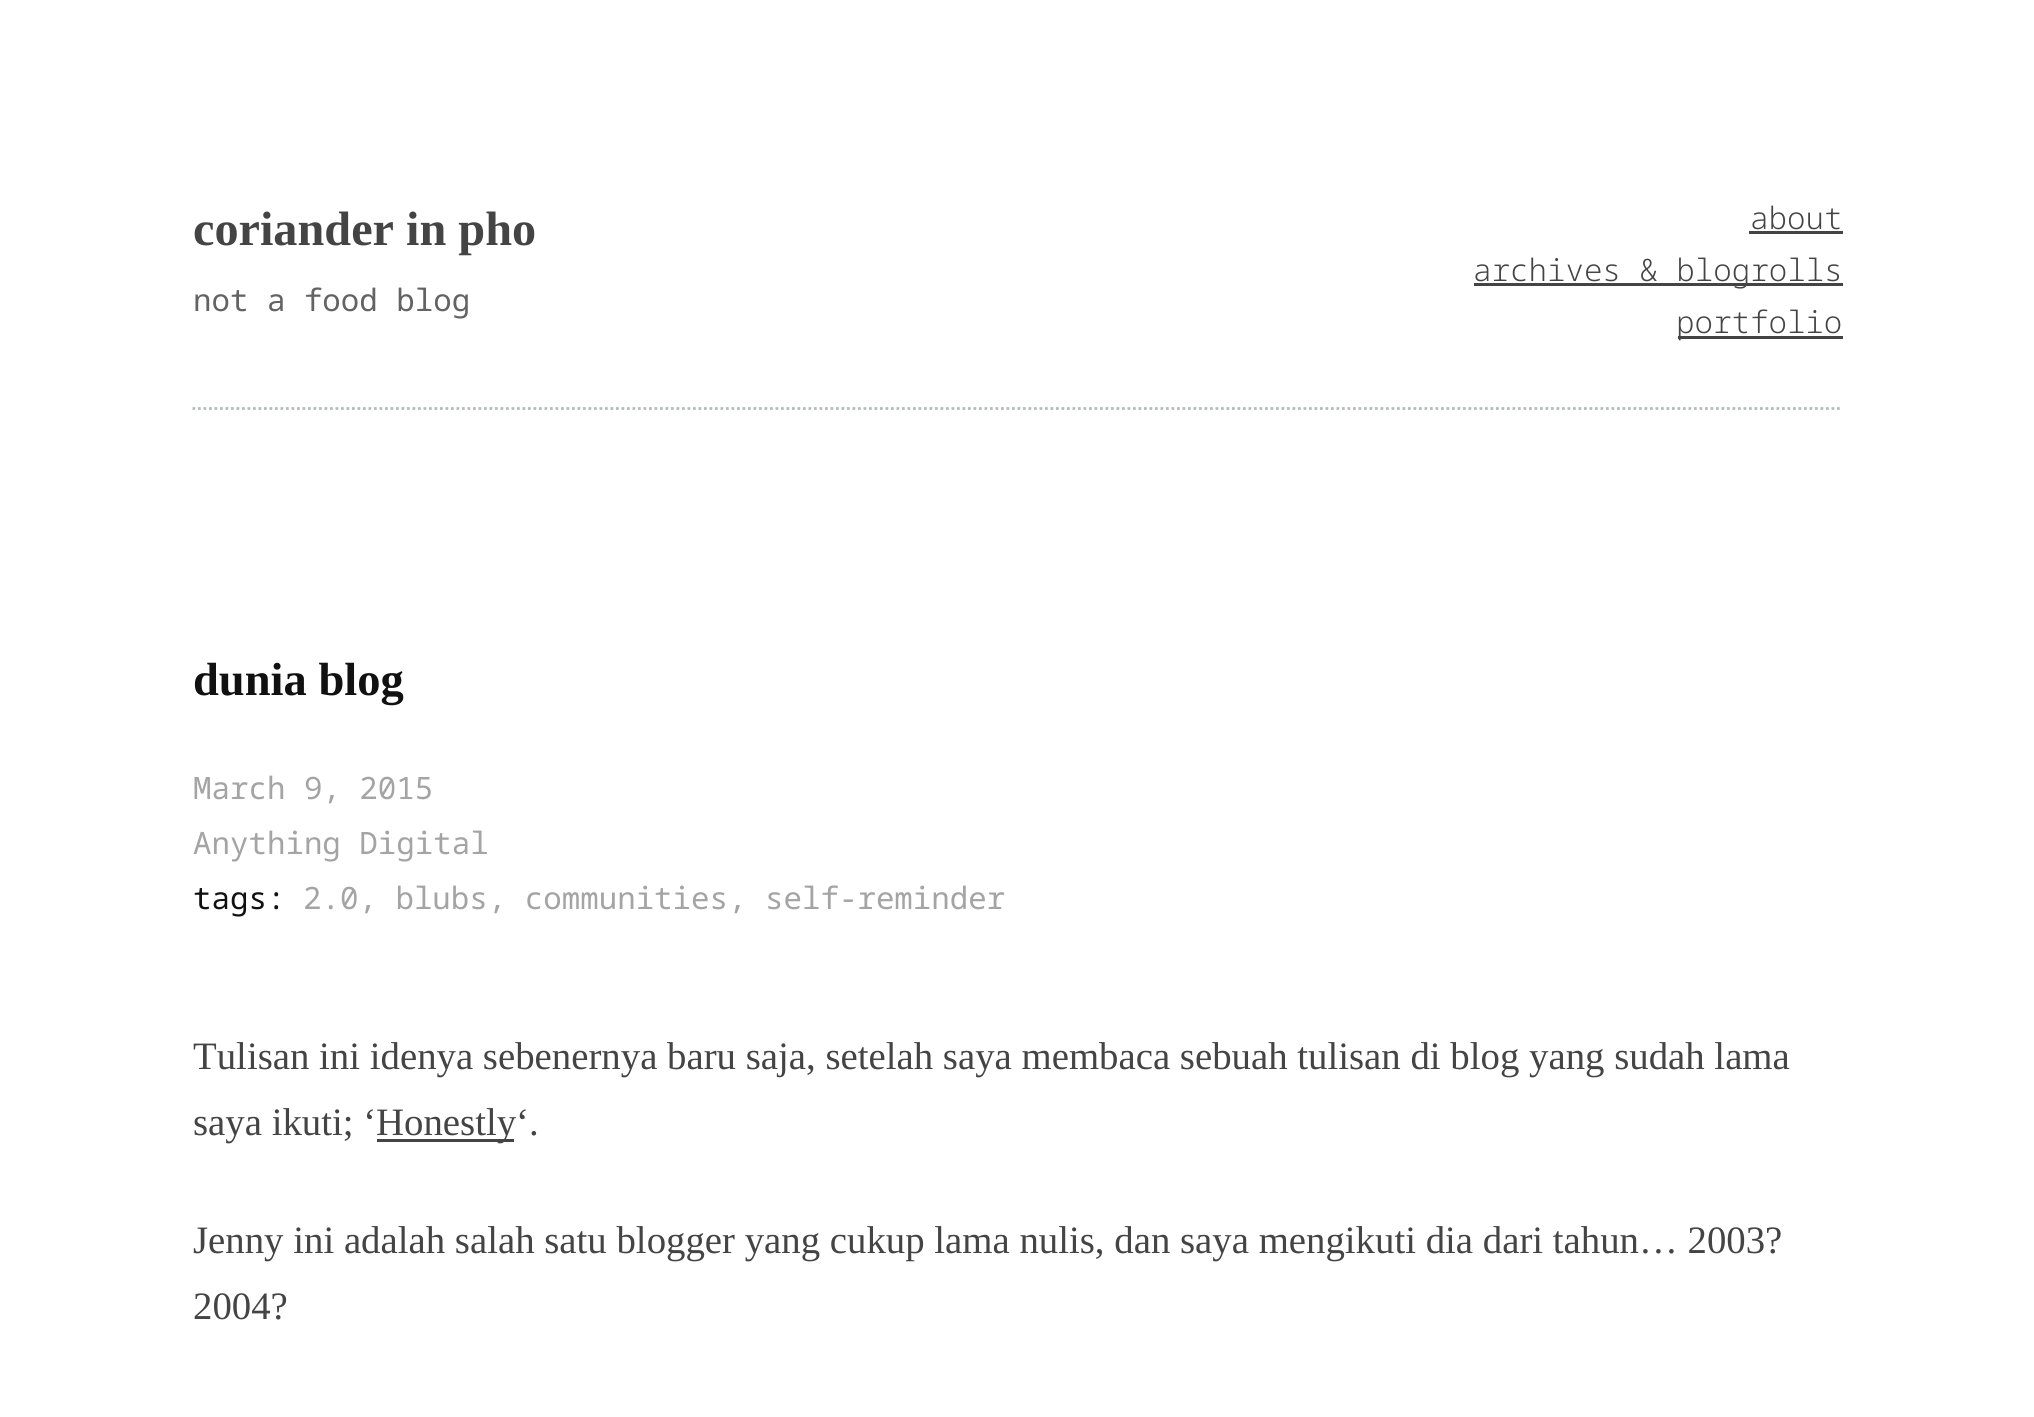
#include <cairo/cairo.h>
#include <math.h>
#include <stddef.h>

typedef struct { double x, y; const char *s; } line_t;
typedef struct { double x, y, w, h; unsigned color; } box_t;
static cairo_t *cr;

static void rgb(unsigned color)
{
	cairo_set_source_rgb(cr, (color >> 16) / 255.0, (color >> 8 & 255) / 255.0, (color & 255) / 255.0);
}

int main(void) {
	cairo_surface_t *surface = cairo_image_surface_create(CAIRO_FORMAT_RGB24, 2034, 1417);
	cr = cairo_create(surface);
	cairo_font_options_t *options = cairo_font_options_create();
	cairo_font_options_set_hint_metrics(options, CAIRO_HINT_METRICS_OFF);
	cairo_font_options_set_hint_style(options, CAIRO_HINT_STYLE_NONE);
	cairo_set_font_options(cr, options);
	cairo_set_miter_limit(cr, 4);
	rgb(0xffffff);
	cairo_paint(cr);
	cairo_new_path(cr);
	cairo_move_to(cr, 192.5, 408.5);
	cairo_line_to(cr, 1842.5, 408.5);
	rgb(0xb5bdbc);
	cairo_set_line_width(cr, 2.8);
	cairo_set_dash(cr, (double[]){2.75, 2.75}, 2, 0);
	cairo_stroke(cr);
	{
		static const box_t items[] = {
			{1749, 231, 94, 3, 0x444444},
			{1474, 283, 369, 3, 0x444444},
			{1678, 336, 165, 3, 0x444444},
			{377, 1139, 137, 3, 0x444444},
		};
		for (size_t i = 0; i < sizeof items / sizeof *items; i++) {
			rgb(items[i].color);
			cairo_rectangle(cr, items[i].x, items[i].y, items[i].w, items[i].h);
			cairo_fill(cr);
		}
	}
	cairo_select_font_face(cr, "Liberation Serif", CAIRO_FONT_SLANT_NORMAL, CAIRO_FONT_WEIGHT_BOLD);
	cairo_set_font_size(cr, 48.25);
	cairo_move_to(cr, 193, 245);
	cairo_show_text(cr, "coriander in pho");
	cairo_select_font_face(cr, "Noto Sans Mono", CAIRO_FONT_SLANT_NORMAL, CAIRO_FONT_WEIGHT_NORMAL);
	cairo_set_font_size(cr, 30.8);
	rgb(0x636363);
	cairo_move_to(cr, 193, 311);
	cairo_show_text(cr, "not a food blog");
	cairo_select_font_face(cr, "Noto Sans Mono Light", CAIRO_FONT_SLANT_NORMAL, CAIRO_FONT_WEIGHT_NORMAL);
	rgb(0x444444);
	{
		static const line_t items[] = {
			{1750, 229, "about"},
			{1473, 281, "archives & blogrolls"},
			{1676, 333, "portfolio"},
		};
		for (size_t i = 0; i < sizeof items / sizeof *items; i++) {
			cairo_move_to(cr, items[i].x, items[i].y);
			cairo_show_text(cr, items[i].s);
		}
	}
	cairo_select_font_face(cr, "Liberation Serif", CAIRO_FONT_SLANT_NORMAL, CAIRO_FONT_WEIGHT_BOLD);
	cairo_set_font_size(cr, 46.5);
	rgb(0x111111);
	cairo_move_to(cr, 193, 695);
	cairo_show_text(cr, "dunia blog");
	cairo_select_font_face(cr, "Noto Sans Mono", CAIRO_FONT_SLANT_NORMAL, CAIRO_FONT_WEIGHT_NORMAL);
	cairo_set_font_size(cr, 30.8);
	rgb(0xa4a4a4);
	cairo_move_to(cr, 193, 799);
	cairo_show_text(cr, "March 9, 2015");
	cairo_move_to(cr, 193, 854);
	cairo_show_text(cr, "Anything Digital");
	rgb(0x111111);
	cairo_move_to(cr, 193, 909);
	cairo_show_text(cr, "tags:");
	rgb(0xa4a4a4);
	cairo_move_to(cr, 303, 909);
	cairo_show_text(cr, "2.0, blubs, communities, self-reminder");
	cairo_select_font_face(cr, "Liberation Serif", CAIRO_FONT_SLANT_NORMAL, CAIRO_FONT_WEIGHT_NORMAL);
	cairo_set_font_size(cr, 38.8);
	rgb(0x444444);
	{
		static const line_t items[] = {
			{193, 1069, "Tulisan ini idenya sebenernya baru saja, setelah saya membaca sebuah tulisan di blog yang sudah lama"},
			{193, 1135, "saya ikuti; ‘"},
			{376, 1135, "Honestly‘."},
			{193, 1253, "Jenny ini adalah salah satu blogger yang cukup lama nulis, dan saya mengikuti dia dari tahun… 2003?"},
			{193, 1319, "2004?"},
		};
		for (size_t i = 0; i < sizeof items / sizeof *items; i++) {
			cairo_move_to(cr, items[i].x, items[i].y);
			cairo_show_text(cr, items[i].s);
		}
	}
	cairo_surface_write_to_png(surface, "page.png");
	cairo_font_options_destroy(options);
	cairo_destroy(cr);
	cairo_surface_destroy(surface);
	return 0;
}
